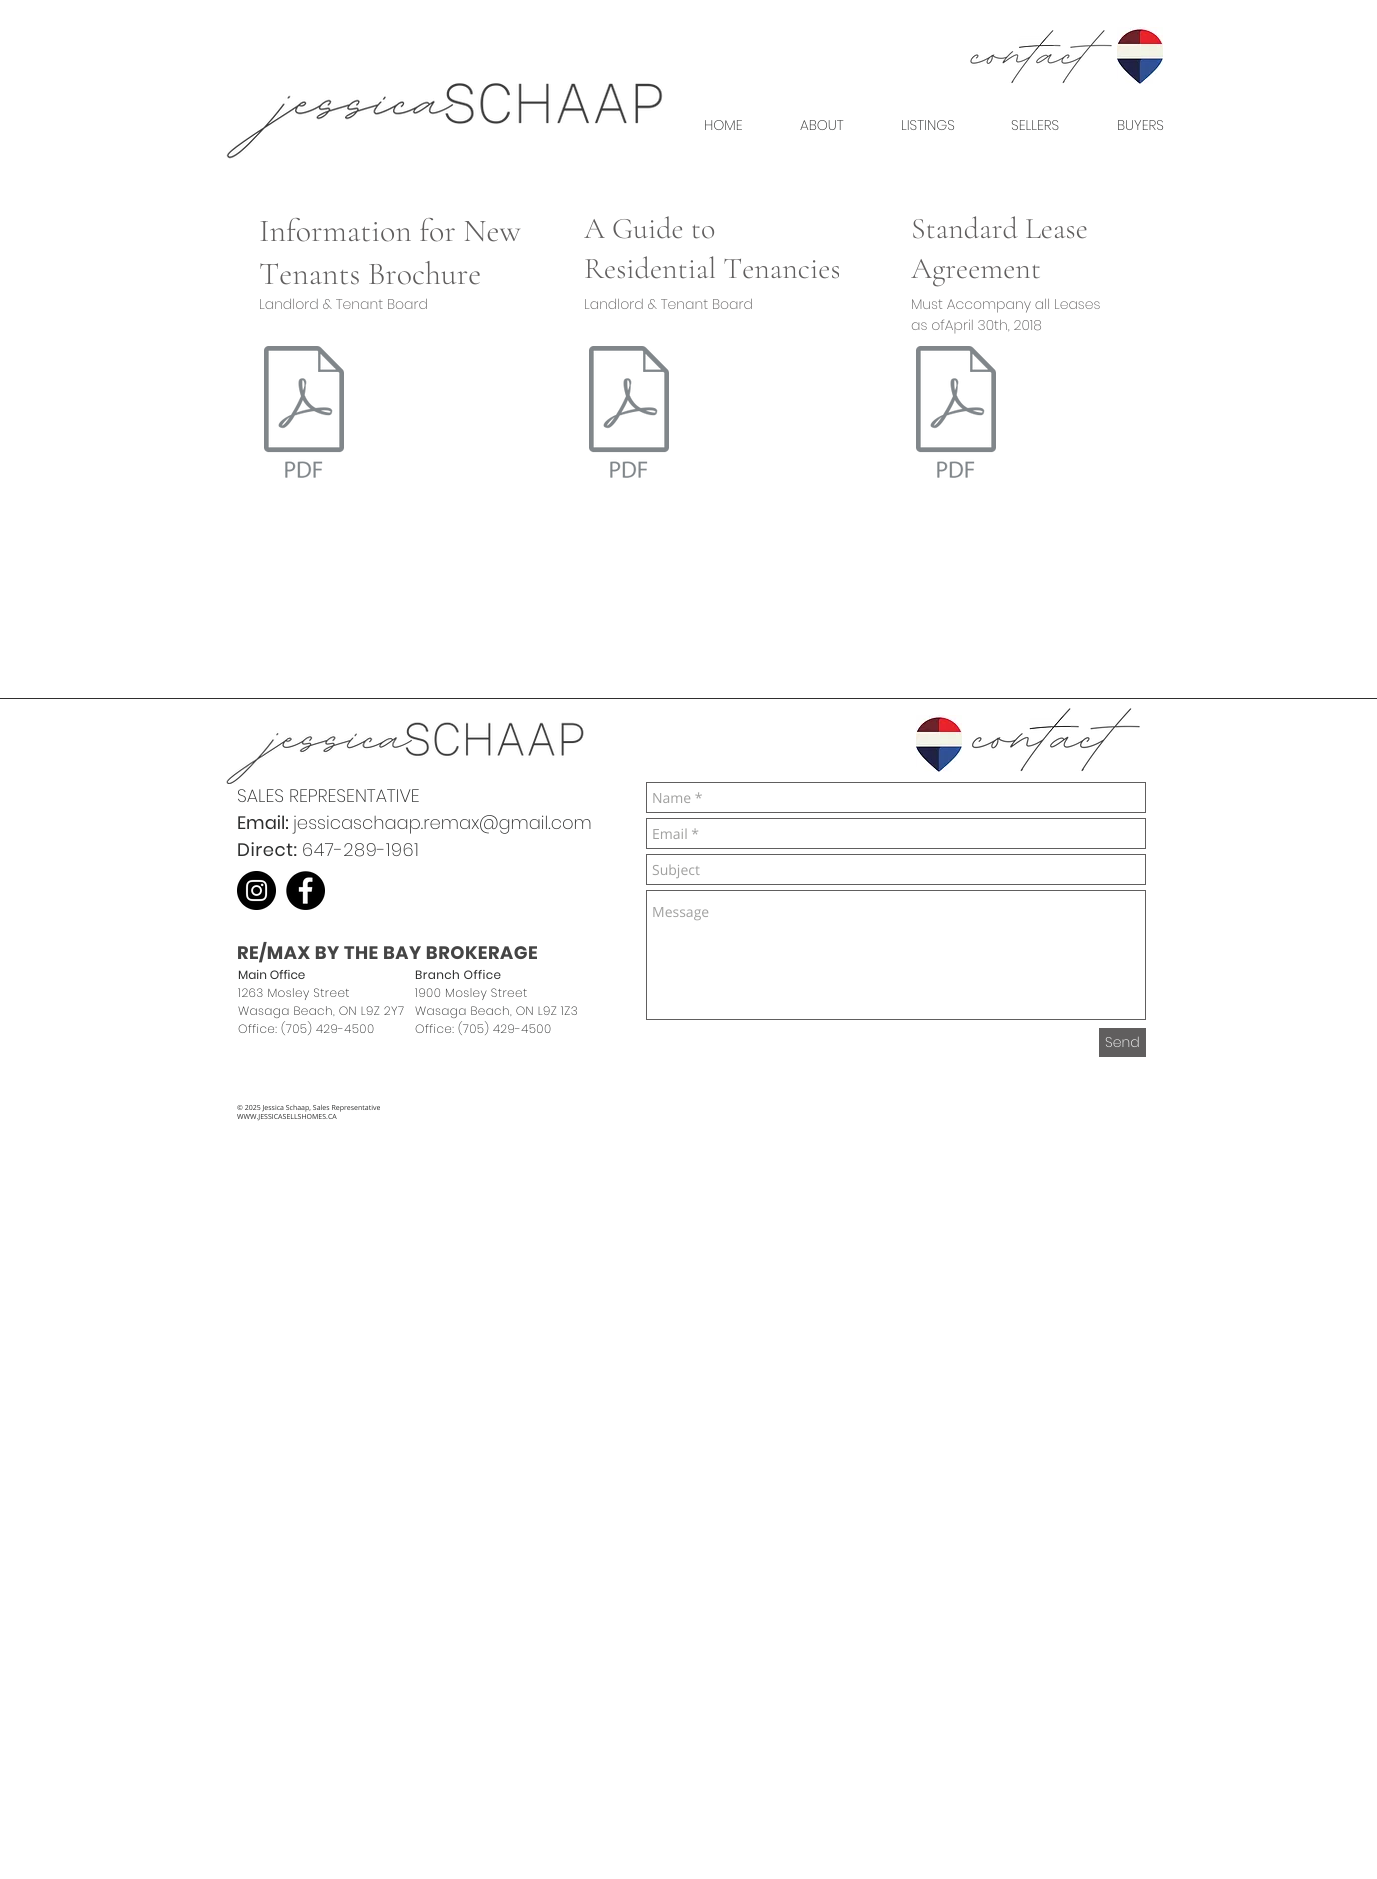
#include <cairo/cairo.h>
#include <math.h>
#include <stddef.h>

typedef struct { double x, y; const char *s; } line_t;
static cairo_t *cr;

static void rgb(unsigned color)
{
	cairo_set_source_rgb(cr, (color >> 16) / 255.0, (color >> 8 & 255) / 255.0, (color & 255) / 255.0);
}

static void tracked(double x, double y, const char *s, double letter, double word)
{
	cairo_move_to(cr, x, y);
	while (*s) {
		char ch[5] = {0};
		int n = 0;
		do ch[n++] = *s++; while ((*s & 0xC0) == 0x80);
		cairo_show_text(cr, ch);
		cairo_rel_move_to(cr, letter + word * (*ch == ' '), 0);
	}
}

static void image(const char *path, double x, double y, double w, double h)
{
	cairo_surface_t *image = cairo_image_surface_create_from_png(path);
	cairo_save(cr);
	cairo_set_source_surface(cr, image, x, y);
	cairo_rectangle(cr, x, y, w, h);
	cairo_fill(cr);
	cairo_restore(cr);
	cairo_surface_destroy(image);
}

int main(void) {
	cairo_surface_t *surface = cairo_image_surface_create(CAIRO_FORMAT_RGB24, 1377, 1879);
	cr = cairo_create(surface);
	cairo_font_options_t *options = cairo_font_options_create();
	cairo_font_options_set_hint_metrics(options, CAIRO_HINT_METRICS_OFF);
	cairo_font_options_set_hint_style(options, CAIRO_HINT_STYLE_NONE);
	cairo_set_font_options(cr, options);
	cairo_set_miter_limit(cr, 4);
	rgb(0xffffff);
	cairo_paint(cr);
	image("img/1.png", 970, 30, 142, 54);
	image("img/2.png", 1117, 27, 46, 57);
	image("img/3.png", 226, 83, 437, 76);
	image("img/4.png", 264, 346, 80, 132);
	image("img/4.png", 589, 346, 80, 132);
	image("img/4.png", 916, 346, 80, 132);
	rgb(0x2f2e2e);
	cairo_rectangle(cr, 0, 698, 1377, 1);
	cairo_fill(cr);
	image("img/5.png", 226, 722, 358, 62);
	image("img/2.png", 916, 715, 46, 57);
	image("img/6.png", 972, 708, 168, 64);
	cairo_rectangle(cr, 646.5, 782.5, 499, 30);
	rgb(0x605e5e);
	cairo_set_line_width(cr, 1);
	cairo_stroke(cr);
	cairo_rectangle(cr, 646.5, 818.5, 499, 30);
	cairo_stroke(cr);
	cairo_rectangle(cr, 646.5, 854.5, 499, 30);
	cairo_stroke(cr);
	cairo_rectangle(cr, 646.5, 890.5, 499, 129);
	cairo_stroke(cr);
	cairo_rectangle(cr, 1099, 1028, 47, 29);
	cairo_fill(cr);
	image("img/7.png", 237, 871, 39, 39);
	image("img/8.png", 286, 871, 39, 39);
	cairo_select_font_face(cr, "Poppins ExtraLight", CAIRO_FONT_SLANT_NORMAL, CAIRO_FONT_WEIGHT_NORMAL);
	cairo_set_font_size(cr, 14);
	rgb(0x2d2e2e);
	{
		static const line_t items[] = {
			{704, 130, "HOME"},
			{800, 130, "ABOUT"},
			{901, 130, "LISTINGS"},
			{1011, 130, "SELLERS"},
			{1117, 130, "BUYERS"},
		};
		for (size_t i = 0; i < sizeof items / sizeof *items; i++) {
			cairo_move_to(cr, items[i].x, items[i].y);
			cairo_show_text(cr, items[i].s);
		}
	}
	cairo_select_font_face(cr, "Cormorant Garamond Light", CAIRO_FONT_SLANT_NORMAL, CAIRO_FONT_WEIGHT_NORMAL);
	cairo_set_font_size(cr, 32);
	rgb(0x605e5e);
	cairo_move_to(cr, 259, 241);
	cairo_show_text(cr, "Information for New");
	cairo_move_to(cr, 259, 284);
	cairo_show_text(cr, "Tenants Brochure");
	cairo_set_font_size(cr, 30);
	{
		static const line_t items[] = {
			{584, 238, "A Guide to"},
			{584, 278, "Residential Tenancies"},
			{911, 238, "Standard Lease"},
			{911, 278, "Agreement"},
		};
		for (size_t i = 0; i < sizeof items / sizeof *items; i++) {
			cairo_move_to(cr, items[i].x, items[i].y);
			cairo_show_text(cr, items[i].s);
		}
	}
	cairo_select_font_face(cr, "Poppins ExtraLight", CAIRO_FONT_SLANT_NORMAL, CAIRO_FONT_WEIGHT_NORMAL);
	cairo_set_font_size(cr, 14);
	{
		static const line_t items[] = {
			{259, 309, "Landlord & Tenant Board"},
			{584, 309, "Landlord & Tenant Board"},
			{911, 309, "Must Accompany all Leases"},
			{911, 330, "as ofApril 30th, 2018"},
		};
		for (size_t i = 0; i < sizeof items / sizeof *items; i++) {
			cairo_move_to(cr, items[i].x, items[i].y);
			cairo_show_text(cr, items[i].s);
		}
	}
	cairo_set_font_size(cr, 18);
	rgb(0x2d2e2e);
	cairo_move_to(cr, 237, 802);
	cairo_show_text(cr, "SALES REPRESENTATIVE");
	cairo_select_font_face(cr, "Open Sans", CAIRO_FONT_SLANT_NORMAL, CAIRO_FONT_WEIGHT_NORMAL);
	cairo_set_font_size(cr, 14);
	rgb(0xa0a09f);
	{
		static const line_t items[] = {
			{652, 803, "Name *"},
			{652, 839, "Email *"},
			{652, 875, "Subject"},
			{652, 917, "Message"},
		};
		for (size_t i = 0; i < sizeof items / sizeof *items; i++) {
			cairo_move_to(cr, items[i].x, items[i].y);
			cairo_show_text(cr, items[i].s);
		}
	}
	cairo_select_font_face(cr, "Poppins ExtraLight", CAIRO_FONT_SLANT_NORMAL, CAIRO_FONT_WEIGHT_NORMAL);
	rgb(0xffffff);
	cairo_move_to(cr, 1105, 1047);
	cairo_show_text(cr, "Send");
	cairo_select_font_face(cr, "Poppins", CAIRO_FONT_SLANT_NORMAL, CAIRO_FONT_WEIGHT_NORMAL);
	cairo_set_font_size(cr, 18);
	rgb(0x2d2e2e);
	cairo_move_to(cr, 237, 829);
	cairo_show_text(cr, "Email:");
	cairo_select_font_face(cr, "Poppins ExtraLight", CAIRO_FONT_SLANT_NORMAL, CAIRO_FONT_WEIGHT_NORMAL);
	cairo_move_to(cr, 293, 829);
	cairo_show_text(cr, "jessicaschaap.remax@gmail.com");
	cairo_select_font_face(cr, "Poppins", CAIRO_FONT_SLANT_NORMAL, CAIRO_FONT_WEIGHT_NORMAL);
	tracked(237, 856, "Direct:", 0.55, 0);
	cairo_select_font_face(cr, "Poppins ExtraLight", CAIRO_FONT_SLANT_NORMAL, CAIRO_FONT_WEIGHT_NORMAL);
	tracked(302, 856, "647-289-1961", 0.55, 0);
	cairo_select_font_face(cr, "Poppins", CAIRO_FONT_SLANT_NORMAL, CAIRO_FONT_WEIGHT_BOLD);
	rgb(0x444444);
	tracked(237, 959, "RE/MAX BY THE BAY BROKERAGE", 0.55, 0);
	cairo_select_font_face(cr, "Poppins", CAIRO_FONT_SLANT_NORMAL, CAIRO_FONT_WEIGHT_NORMAL);
	cairo_set_font_size(cr, 12);
	rgb(0x2d2e2e);
	cairo_move_to(cr, 238, 979);
	cairo_show_text(cr, "Main Office");
	cairo_select_font_face(cr, "Poppins ExtraLight", CAIRO_FONT_SLANT_NORMAL, CAIRO_FONT_WEIGHT_NORMAL);
	{
		static const line_t items[] = {
			{238, 997, "1263 Mosley Street"},
			{238, 1015, "Wasaga Beach, ON L9Z 2Y7"},
			{238, 1033, "Office: (705) 429-4500"},
		};
		for (size_t i = 0; i < sizeof items / sizeof *items; i++) {
			tracked(items[i].x, items[i].y, items[i].s, 0.4, 0);
		}
	}
	cairo_select_font_face(cr, "Poppins", CAIRO_FONT_SLANT_NORMAL, CAIRO_FONT_WEIGHT_NORMAL);
	tracked(415, 979, "Branch Office", 0.4, 0);
	cairo_select_font_face(cr, "Poppins ExtraLight", CAIRO_FONT_SLANT_NORMAL, CAIRO_FONT_WEIGHT_NORMAL);
	{
		static const line_t items[] = {
			{415, 997, "1900 Mosley Street"},
			{415, 1015, "Wasaga Beach, ON L9Z 1Z3"},
			{415, 1033, "Office: (705) 429-4500"},
		};
		for (size_t i = 0; i < sizeof items / sizeof *items; i++) {
			tracked(items[i].x, items[i].y, items[i].s, 0.4, 0);
		}
	}
	cairo_select_font_face(cr, "Open Sans", CAIRO_FONT_SLANT_NORMAL, CAIRO_FONT_WEIGHT_NORMAL);
	cairo_set_font_size(cr, 7);
	cairo_move_to(cr, 237, 1110);
	cairo_show_text(cr, "© 2025 Jessica Schaap, Sales Representative");
	cairo_move_to(cr, 237, 1119);
	cairo_show_text(cr, "WWW.JESSICASELLSHOMES.CA");
	cairo_surface_write_to_png(surface, "page.png");
	cairo_font_options_destroy(options);
	cairo_destroy(cr);
	cairo_surface_destroy(surface);
	return 0;
}
